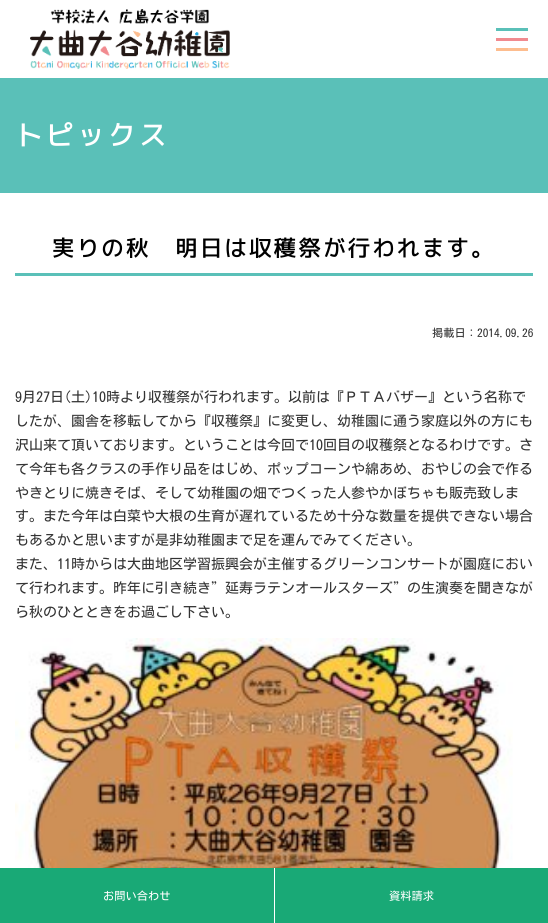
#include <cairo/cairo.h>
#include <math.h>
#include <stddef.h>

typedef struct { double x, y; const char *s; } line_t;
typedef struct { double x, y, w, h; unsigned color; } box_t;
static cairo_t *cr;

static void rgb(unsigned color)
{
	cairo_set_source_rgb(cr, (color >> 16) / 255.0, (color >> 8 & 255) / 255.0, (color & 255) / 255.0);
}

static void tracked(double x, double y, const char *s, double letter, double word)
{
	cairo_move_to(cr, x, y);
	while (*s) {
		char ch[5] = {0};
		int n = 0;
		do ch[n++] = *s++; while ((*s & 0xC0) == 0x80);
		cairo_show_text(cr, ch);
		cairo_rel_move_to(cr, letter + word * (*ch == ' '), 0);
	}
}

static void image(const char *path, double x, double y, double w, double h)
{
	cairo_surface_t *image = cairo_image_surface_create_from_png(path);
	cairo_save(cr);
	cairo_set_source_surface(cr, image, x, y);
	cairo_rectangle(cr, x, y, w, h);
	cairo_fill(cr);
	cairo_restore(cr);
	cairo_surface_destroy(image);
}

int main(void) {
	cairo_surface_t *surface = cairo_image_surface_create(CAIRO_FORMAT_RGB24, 548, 923);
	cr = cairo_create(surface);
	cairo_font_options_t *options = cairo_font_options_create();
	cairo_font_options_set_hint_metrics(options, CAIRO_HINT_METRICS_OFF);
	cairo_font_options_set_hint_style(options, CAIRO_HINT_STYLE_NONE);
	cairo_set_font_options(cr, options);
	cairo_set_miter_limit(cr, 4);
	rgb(0xffffff);
	cairo_paint(cr);
	image("img/1.png", 30, 9, 200, 60);
	{
		static const box_t items[] = {
			{496, 28, 32, 3, 0x5ac0b8},
			{496, 38, 32, 3, 0xf18a8f},
			{496, 48, 32, 3, 0xfdbd8f},
			{0, 78, 548, 115, 0x5ac0b8},
			{15, 273, 518, 3, 0x5ac0b8},
		};
		for (size_t i = 0; i < sizeof items / sizeof *items; i++) {
			rgb(items[i].color);
			cairo_rectangle(cr, items[i].x, items[i].y, items[i].w, items[i].h);
			cairo_fill(cr);
		}
	}
	image("img/2.png", 15, 638, 498, 230);
	rgb(0x19a976);
	cairo_rectangle(cr, 0, 868, 274, 55);
	cairo_fill(cr);
	cairo_rectangle(cr, 275, 868, 273, 55);
	cairo_fill(cr);
	cairo_select_font_face(cr, "M PLUS 1p Medium", CAIRO_FONT_SLANT_NORMAL, CAIRO_FONT_WEIGHT_NORMAL);
	cairo_set_font_size(cr, 28);
	rgb(0xffffff);
	tracked(15, 145, "トピックス", 3, 0);
	cairo_set_font_size(cr, 22.4);
	rgb(0x000000);
	tracked(52, 256, "実りの秋　明日は収穫祭が行われます。", 2.25, 0);
	cairo_select_font_face(cr, "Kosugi", CAIRO_FONT_SLANT_NORMAL, CAIRO_FONT_WEIGHT_NORMAL);
	cairo_set_font_size(cr, 11.25);
	rgb(0x333333);
	cairo_move_to(cr, 432, 337);
	cairo_show_text(cr, "掲載日：2014.09.26");
	cairo_set_font_size(cr, 14);
	{
		static const line_t items[] = {
			{15, 402, "9月27日(土)10時より収穫祭が行われます。以前は『ＰＴＡバザー』という名称で"},
			{15, 426, "したが、園舎を移転してから『収穫祭』に変更し、幼稚園に通う家庭以外の方にも"},
			{15, 450, "沢山来て頂いております。ということは今回で10回目の収穫祭となるわけです。さ"},
			{15, 474, "て今年も各クラスの手作り品をはじめ、ポップコーンや綿あめ、おやじの会で作る"},
			{15, 498, "やきとりに焼きそば、そして幼稚園の畑でつくった人参やかぼちゃも販売致しま"},
			{15, 521, "す。また今年は白菜や大根の生育が遅れているため十分な数量を提供できない場合"},
			{15, 545, "もあるかと思いますが是非幼稚園まで足を運んでみてください。"},
			{15, 569, "また、11時からは大曲地区学習振興会が主催するグリーンコンサートが園庭におい"},
			{15, 593, "て行われます。昨年に引き続き”延寿ラテンオールスターズ”の生演奏を聞きなが"},
			{15, 617, "ら秋のひとときをお過ごし下さい。"},
		};
		for (size_t i = 0; i < sizeof items / sizeof *items; i++) {
			cairo_move_to(cr, items[i].x, items[i].y);
			cairo_show_text(cr, items[i].s);
		}
	}
	cairo_set_font_size(cr, 11.25);
	rgb(0xffffff);
	cairo_move_to(cr, 103, 900);
	cairo_show_text(cr, "お問い合わせ");
	cairo_move_to(cr, 389, 900);
	cairo_show_text(cr, "資料請求");
	cairo_surface_write_to_png(surface, "page.png");
	cairo_font_options_destroy(options);
	cairo_destroy(cr);
	cairo_surface_destroy(surface);
	return 0;
}
